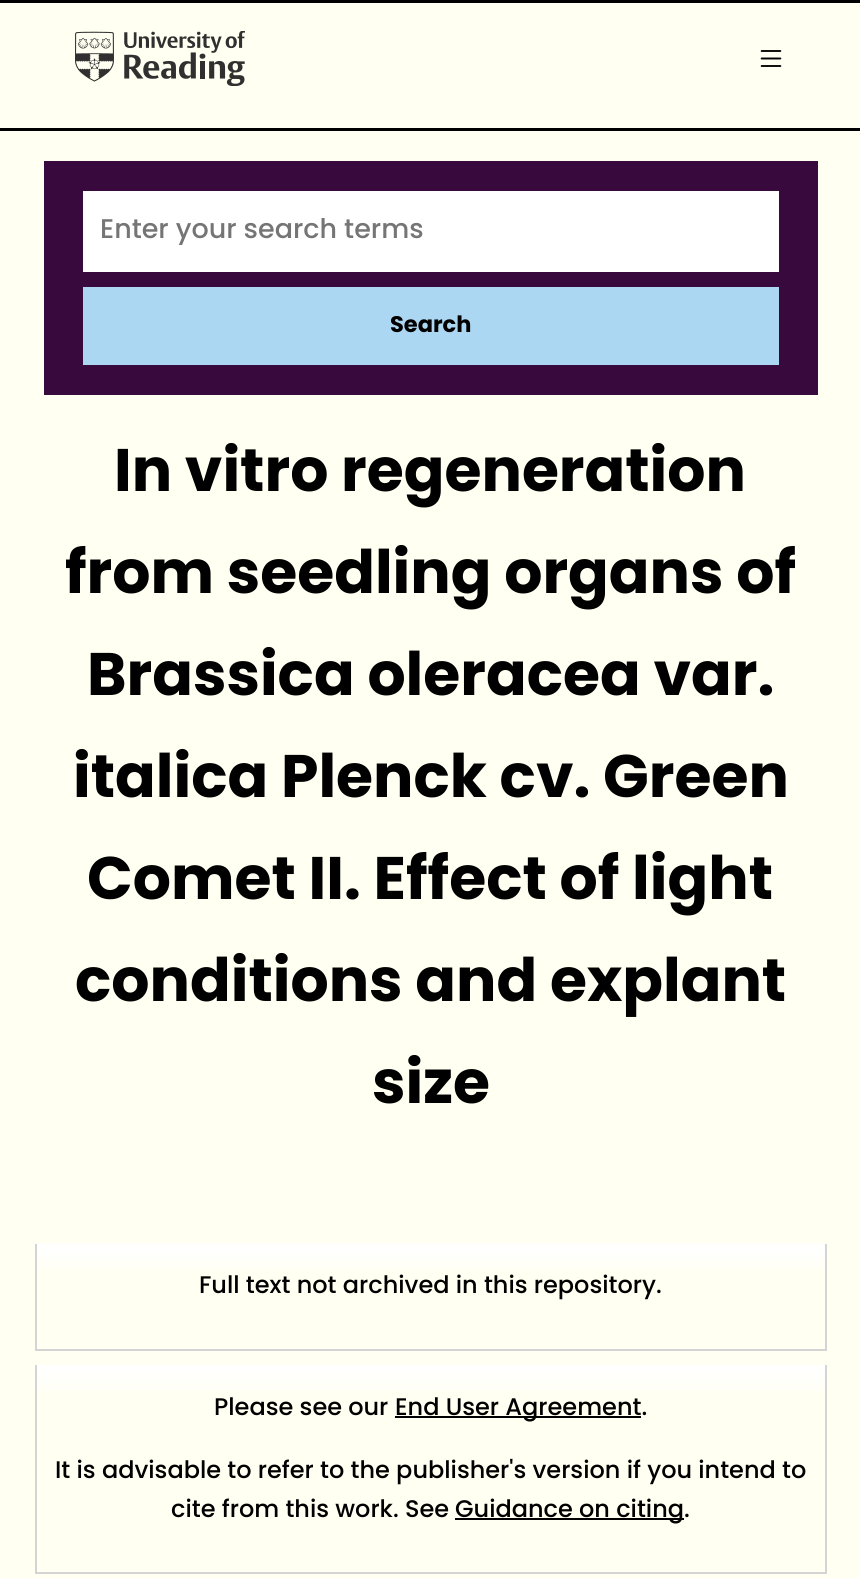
#include <cairo/cairo.h>
#include <math.h>
#include <stddef.h>

typedef struct { double x, y; const char *s; } line_t;
typedef struct { double x, y, w, h; unsigned color; } box_t;
static cairo_t *cr;

static void rgb(unsigned color)
{
	cairo_set_source_rgb(cr, (color >> 16) / 255.0, (color >> 8 & 255) / 255.0, (color & 255) / 255.0);
}

static void image(const char *path, double x, double y, double w, double h)
{
	cairo_surface_t *image = cairo_image_surface_create_from_png(path);
	cairo_save(cr);
	cairo_set_source_surface(cr, image, x, y);
	cairo_rectangle(cr, x, y, w, h);
	cairo_fill(cr);
	cairo_restore(cr);
	cairo_surface_destroy(image);
}

int main(void) {
	cairo_surface_t *surface = cairo_image_surface_create(CAIRO_FORMAT_RGB24, 860, 1578);
	cr = cairo_create(surface);
	cairo_font_options_t *options = cairo_font_options_create();
	cairo_font_options_set_hint_metrics(options, CAIRO_HINT_METRICS_OFF);
	cairo_font_options_set_hint_style(options, CAIRO_HINT_STYLE_NONE);
	cairo_set_font_options(cr, options);
	cairo_set_miter_limit(cr, 4);
	rgb(0xfffff2);
	cairo_paint(cr);
	rgb(0x000000);
	cairo_rectangle(cr, 0, 0, 860, 3);
	cairo_fill(cr);
	cairo_rectangle(cr, 0, 128, 860, 3);
	cairo_fill(cr);
	image("img/1.png", 75, 31, 170, 55);
	image("img/2.png", 760, 50, 22, 17);
	{
		static const box_t items[] = {
			{44, 161, 774, 234, 0x37093d},
			{83, 191, 696, 81, 0xffffff},
			{83, 287, 696, 78, 0xacd7f2},
		};
		for (size_t i = 0; i < sizeof items / sizeof *items; i++) {
			rgb(items[i].color);
			cairo_rectangle(cr, items[i].x, items[i].y, items[i].w, items[i].h);
			cairo_fill(cr);
		}
	}
	image("img/3.png", 34, 1243, 793, 26);
	{
		static const box_t items[] = {
			{825, 1244, 2, 106, 0xd4d4d4},
			{35, 1349, 792, 2, 0xd4d4d4},
			{35, 1244, 2, 106, 0xd4d4d4},
		};
		for (size_t i = 0; i < sizeof items / sizeof *items; i++) {
			rgb(items[i].color);
			cairo_rectangle(cr, items[i].x, items[i].y, items[i].w, items[i].h);
			cairo_fill(cr);
		}
	}
	image("img/4.png", 34, 1365, 791, 26);
	{
		static const box_t items[] = {
			{825, 1365, 2, 209, 0xd4d4d4},
			{35, 1572, 792, 2, 0xd4d4d4},
			{35, 1365, 2, 209, 0xd4d4d4},
			{395, 1416, 246, 2, 0x000000},
			{455, 1518, 229, 2, 0x000000},
		};
		for (size_t i = 0; i < sizeof items / sizeof *items; i++) {
			rgb(items[i].color);
			cairo_rectangle(cr, items[i].x, items[i].y, items[i].w, items[i].h);
			cairo_fill(cr);
		}
	}
	cairo_select_font_face(cr, "Poppins Medium", CAIRO_FONT_SLANT_NORMAL, CAIRO_FONT_WEIGHT_NORMAL);
	cairo_set_font_size(cr, 27);
	rgb(0x757575);
	cairo_move_to(cr, 100, 238);
	cairo_show_text(cr, "Enter your search terms");
	cairo_select_font_face(cr, "Poppins", CAIRO_FONT_SLANT_NORMAL, CAIRO_FONT_WEIGHT_BOLD);
	cairo_set_font_size(cr, 22.5);
	rgb(0x000000);
	cairo_move_to(cr, 390, 332);
	cairo_show_text(cr, "Search");
	cairo_set_font_size(cr, 60);
	{
		static const line_t items[] = {
			{114, 491, "In vitro regeneration"},
			{65, 593, "from seedling organs of"},
			{87, 695, "Brassica oleracea var."},
			{73, 797, "italica Plenck cv. Green"},
			{87, 899, "Comet II. Effect of light"},
			{75, 1001, "conditions and explant"},
			{372, 1103, "size"},
		};
		for (size_t i = 0; i < sizeof items / sizeof *items; i++) {
			cairo_move_to(cr, items[i].x, items[i].y);
			cairo_show_text(cr, items[i].s);
		}
	}
	cairo_select_font_face(cr, "Poppins Medium", CAIRO_FONT_SLANT_NORMAL, CAIRO_FONT_WEIGHT_NORMAL);
	cairo_set_font_size(cr, 24);
	{
		static const line_t items[] = {
			{199, 1293, "Full text not archived in this repository."},
			{214, 1415, "Please see our"},
			{395, 1415, "End User Agreement."},
			{55, 1478, "It is advisable to refer to the publisher's version if you intend to"},
			{171, 1517, "cite from this work. See"},
			{455, 1517, "Guidance on citing."},
		};
		for (size_t i = 0; i < sizeof items / sizeof *items; i++) {
			cairo_move_to(cr, items[i].x, items[i].y);
			cairo_show_text(cr, items[i].s);
		}
	}
	cairo_surface_write_to_png(surface, "page.png");
	cairo_font_options_destroy(options);
	cairo_destroy(cr);
	cairo_surface_destroy(surface);
	return 0;
}
